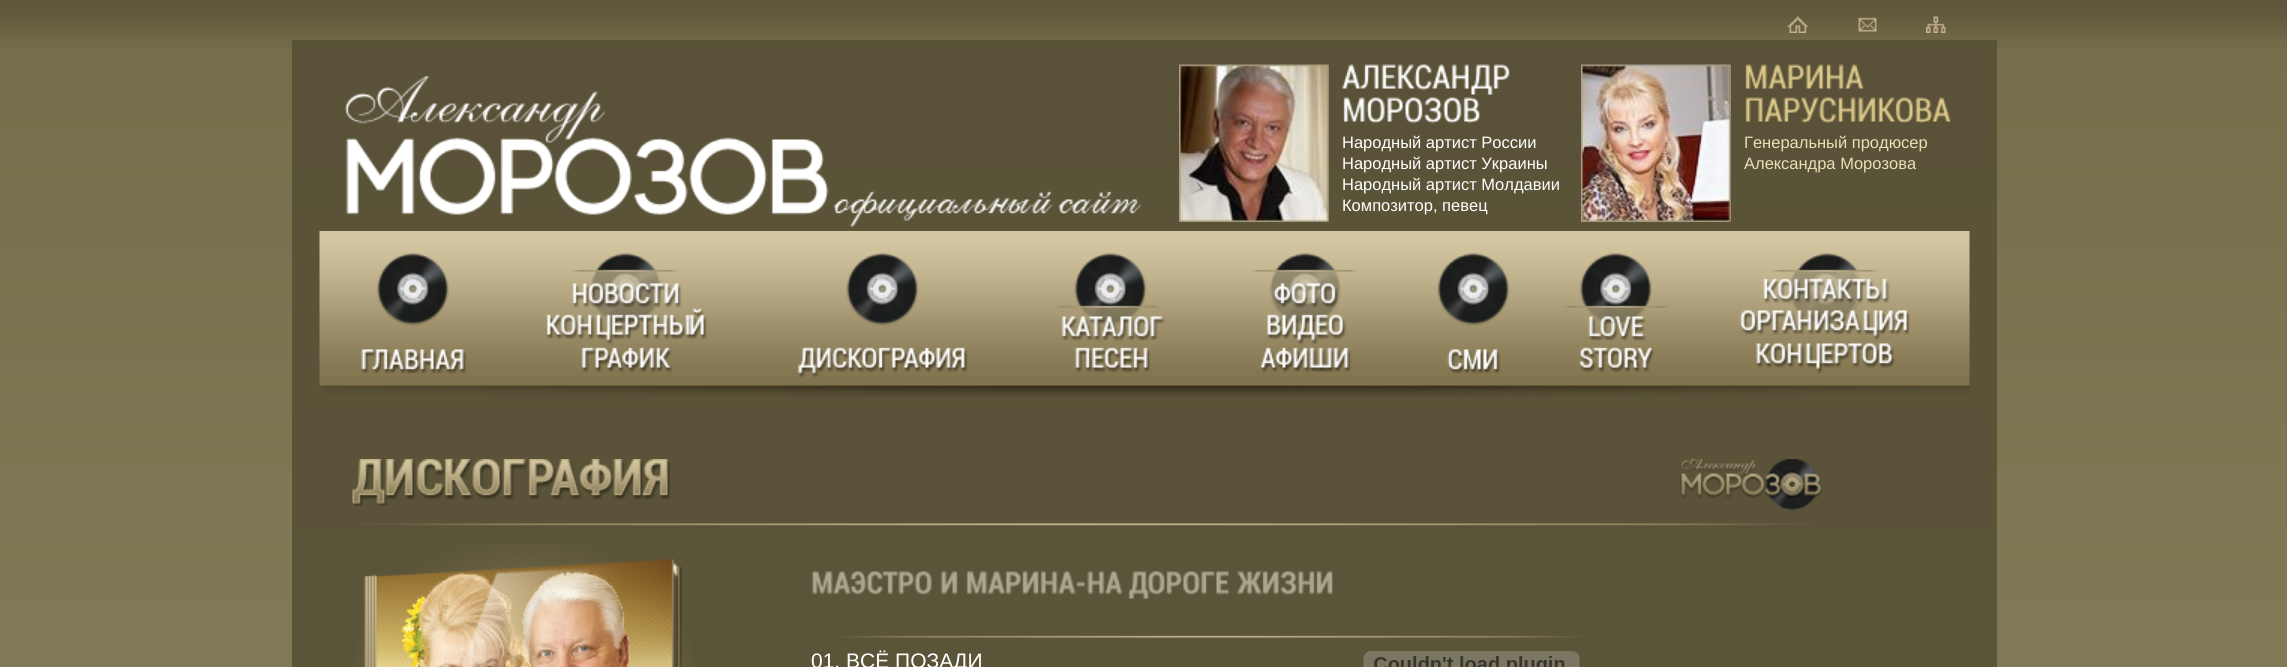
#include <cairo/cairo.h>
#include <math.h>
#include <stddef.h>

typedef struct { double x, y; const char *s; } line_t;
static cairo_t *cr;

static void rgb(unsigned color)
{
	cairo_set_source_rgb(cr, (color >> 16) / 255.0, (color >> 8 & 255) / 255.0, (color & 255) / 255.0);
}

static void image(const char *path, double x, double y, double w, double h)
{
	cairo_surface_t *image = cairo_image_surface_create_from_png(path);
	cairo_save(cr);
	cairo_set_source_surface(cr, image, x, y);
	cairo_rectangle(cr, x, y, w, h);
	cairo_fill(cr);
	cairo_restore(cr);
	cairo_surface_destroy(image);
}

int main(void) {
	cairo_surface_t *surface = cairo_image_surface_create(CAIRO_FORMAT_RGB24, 2287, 667);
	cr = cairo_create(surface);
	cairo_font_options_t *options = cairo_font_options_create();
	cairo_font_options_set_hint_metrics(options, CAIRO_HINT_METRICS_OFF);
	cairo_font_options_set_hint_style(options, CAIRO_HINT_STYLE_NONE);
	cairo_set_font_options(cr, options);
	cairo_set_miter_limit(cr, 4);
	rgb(0xffffff);
	cairo_paint(cr);
	image("img/1.png", 0, 0, 2287, 667);
	image("img/2.png", 1788, 16, 20, 17);
	image("img/3.png", 1858, 17, 19, 15);
	image("img/4.png", 1926, 16, 20, 17);
	cairo_set_source_rgba(cr, 0.333, 0.306, 0.208, 0.87);
	cairo_rectangle(cr, 292, 40, 1705, 362);
	cairo_fill(cr);
	image("img/5.png", 344, 75, 798, 152);
	image("img/6.png", 1179, 64, 150, 158);
	image("img/7.png", 1342, 64, 168, 31);
	image("img/8.png", 1343, 97, 138, 27);
	image("img/9.png", 1581, 64, 150, 158);
	image("img/10.png", 1745, 64, 119, 25);
	image("img/11.png", 1745, 97, 206, 27);
	image("img/12.png", 321, 385, 1649, 12);
	image("img/13.png", 319, 231, 1651, 155);
	cairo_rectangle(cr, 292, 402, 1705, 265);
	cairo_fill(cr);
	image("img/14.png", 352, 459, 319, 47);
	image("img/15.png", 1680, 459, 143, 52);
	image("img/16.png", 359, 523, 1452, 3);
	image("img/17.png", 356, 544, 336, 123);
	image("img/18.png", 811, 571, 121, 24);
	image("img/19.png", 940, 571, 18, 24);
	image("img/20.png", 966, 571, 157, 24);
	image("img/21.png", 1128, 571, 101, 28);
	image("img/22.png", 1237, 571, 96, 24);
	image("img/23.png", 835, 635, 749, 3);
	image("img/24.png", 1363, 651, 217, 16);
	cairo_select_font_face(cr, "Liberation Sans", CAIRO_FONT_SLANT_NORMAL, CAIRO_FONT_WEIGHT_NORMAL);
	cairo_set_font_size(cr, 16.5);
	rgb(0xffffff);
	{
		static const line_t items[] = {
			{1342, 148, "Народный артист России"},
			{1342, 169, "Народный артист Украины"},
			{1342, 190, "Народный артист Молдавии"},
			{1342, 211, "Композитор, певец"},
		};
		for (size_t i = 0; i < sizeof items / sizeof *items; i++) {
			cairo_move_to(cr, items[i].x, items[i].y);
			cairo_show_text(cr, items[i].s);
		}
	}
	rgb(0xebdeb7);
	cairo_move_to(cr, 1744, 148);
	cairo_show_text(cr, "Генеральный продюсер");
	cairo_move_to(cr, 1744, 169);
	cairo_show_text(cr, "Александра Морозова");
	cairo_set_font_size(cr, 21);
	rgb(0xffffff);
	cairo_move_to(cr, 811, 668);
	cairo_show_text(cr, "01. ВСЁ ПОЗАДИ");
	cairo_surface_write_to_png(surface, "page.png");
	cairo_font_options_destroy(options);
	cairo_destroy(cr);
	cairo_surface_destroy(surface);
	return 0;
}
